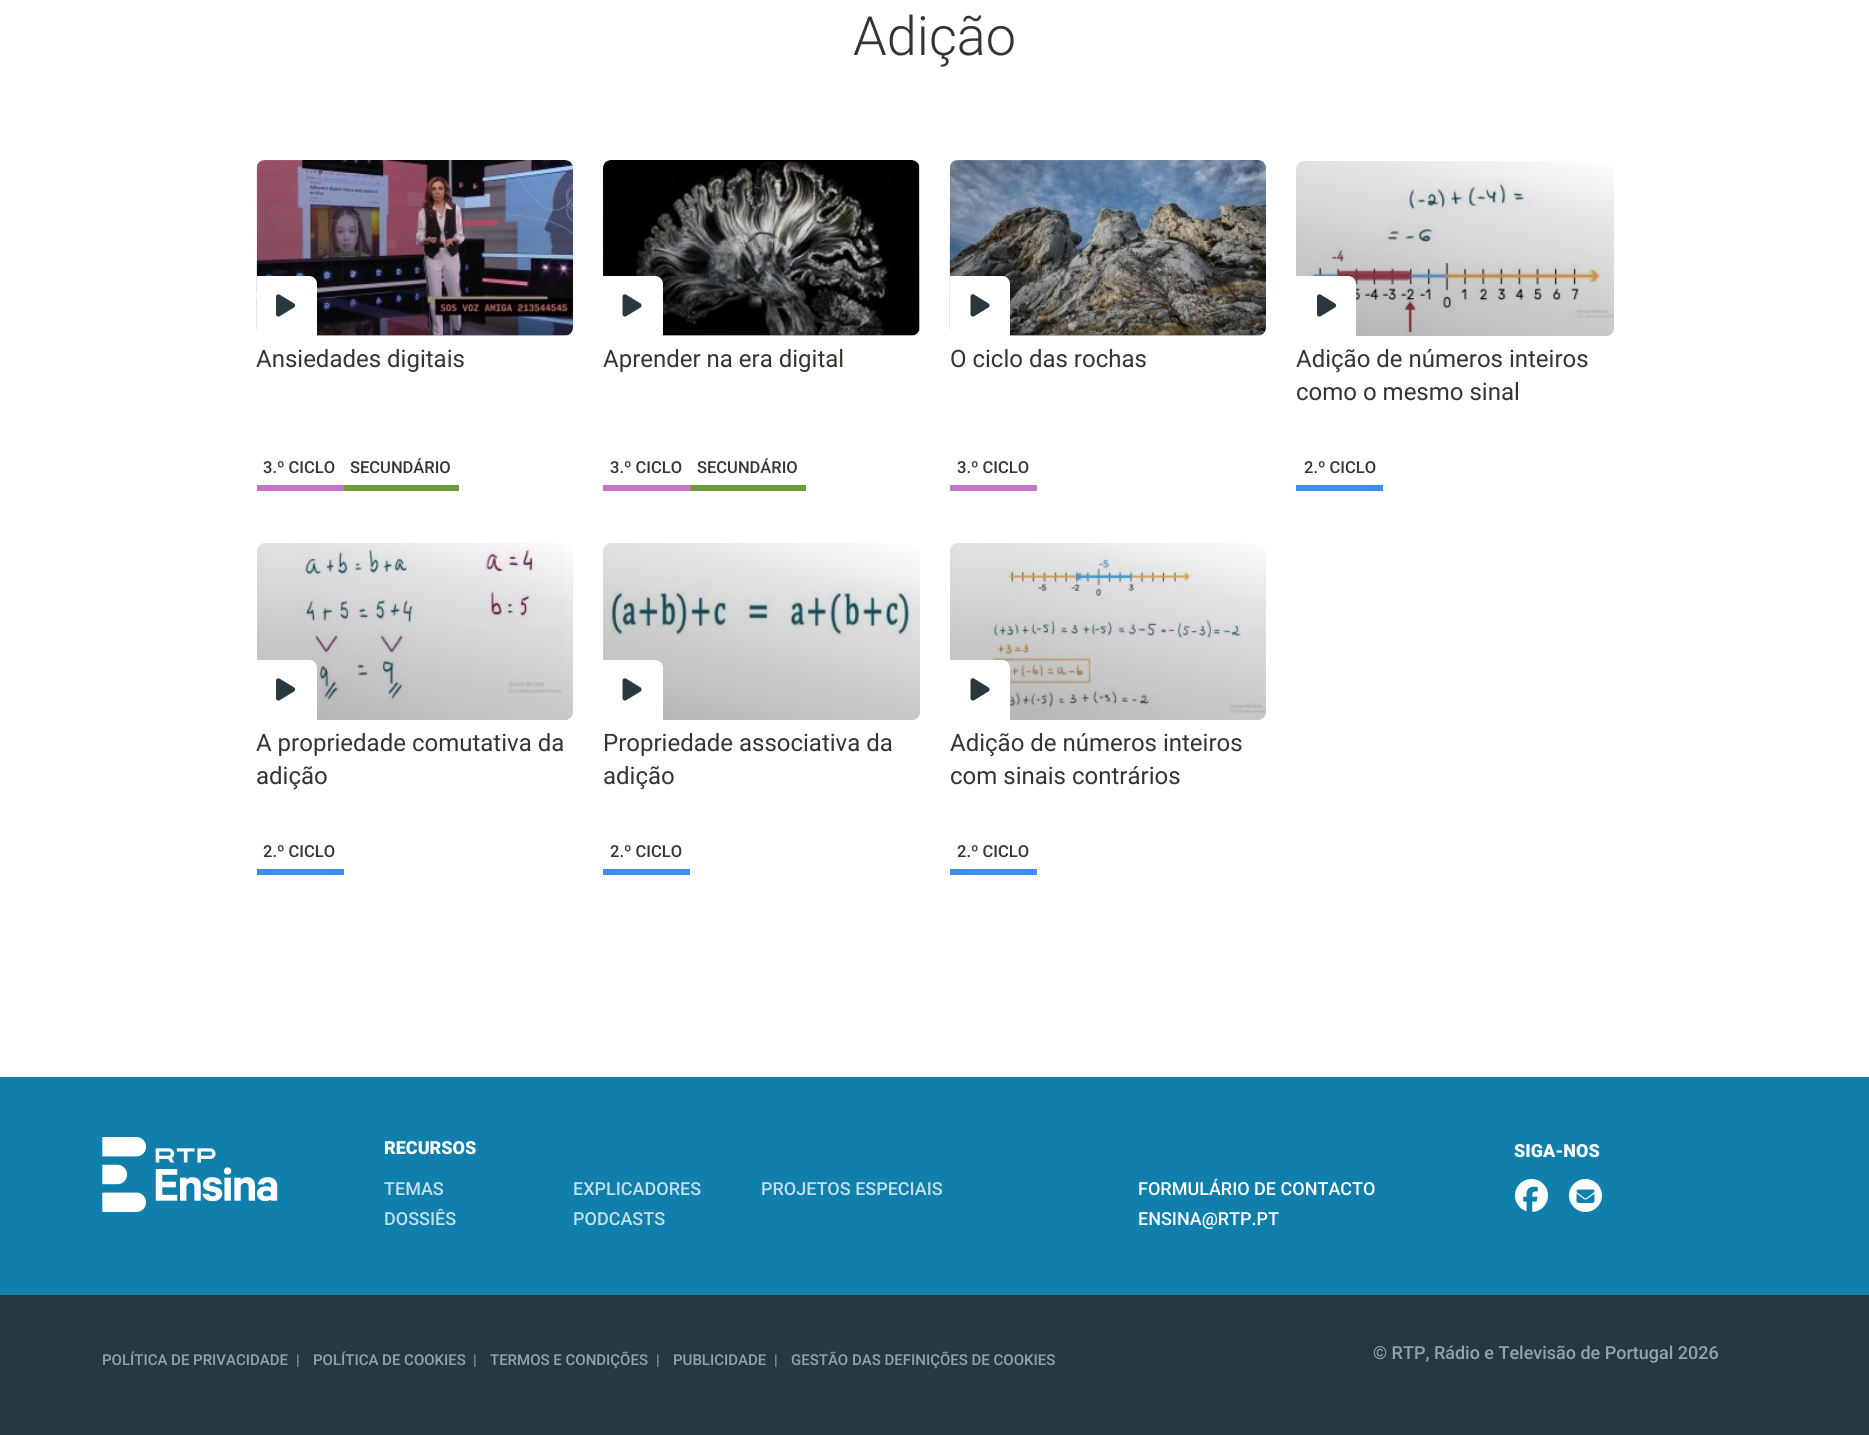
#include <cairo/cairo.h>
#include <math.h>
#include <stddef.h>

typedef struct { double x, y; const char *s; } line_t;
static cairo_t *cr;

static void rgb(unsigned color)
{
	cairo_set_source_rgb(cr, (color >> 16) / 255.0, (color >> 8 & 255) / 255.0, (color & 255) / 255.0);
}

static void image(const char *path, double x, double y, double w, double h)
{
	cairo_surface_t *image = cairo_image_surface_create_from_png(path);
	cairo_save(cr);
	cairo_set_source_surface(cr, image, x, y);
	cairo_rectangle(cr, x, y, w, h);
	cairo_fill(cr);
	cairo_restore(cr);
	cairo_surface_destroy(image);
}

int main(void) {
	cairo_surface_t *surface = cairo_image_surface_create(CAIRO_FORMAT_RGB24, 1869, 1435);
	cr = cairo_create(surface);
	cairo_font_options_t *options = cairo_font_options_create();
	cairo_font_options_set_hint_metrics(options, CAIRO_HINT_METRICS_OFF);
	cairo_font_options_set_hint_style(options, CAIRO_HINT_STYLE_NONE);
	cairo_set_font_options(cr, options);
	cairo_set_miter_limit(cr, 4);
	cairo_pattern_t *gradient;
	rgb(0xffffff);
	cairo_paint(cr);
	image("img/1.png", 256, 160, 317, 176);
	gradient = cairo_pattern_create_linear(385, 368, 445, 128);
	cairo_pattern_add_color_stop_rgba(gradient, 0, 0, 0, 0, 0.3);
	cairo_pattern_add_color_stop_rgba(gradient, 0.75, 0, 0, 0, 0.1);
	cairo_pattern_add_color_stop_rgba(gradient, 1, 0, 0, 0, 0);
	cairo_set_source(cr, gradient);
	cairo_pattern_destroy(gradient);
	cairo_new_path(cr);
	cairo_move_to(cr, 265, 161);
	cairo_line_to(cr, 565, 161);
	cairo_curve_to(cr, 569.5, 161, 573, 164.5, 573, 169);
	cairo_line_to(cr, 573, 328);
	cairo_curve_to(cr, 573, 332.5, 569.5, 336, 565, 336);
	cairo_line_to(cr, 257, 336);
	cairo_line_to(cr, 257, 169);
	cairo_curve_to(cr, 257, 164.5, 260.5, 161, 265, 161);
	cairo_close_path(cr);
	cairo_fill(cr);
	rgb(0xffffff);
	cairo_new_path(cr);
	cairo_move_to(cr, 257, 276);
	cairo_line_to(cr, 309, 276);
	cairo_curve_to(cr, 313.5, 276, 317, 279.5, 317, 284);
	cairo_line_to(cr, 317, 336);
	cairo_line_to(cr, 257, 336);
	cairo_close_path(cr);
	cairo_fill(cr);
	image("img/2.png", 276, 294, 20, 23);
	rgb(0xc771cb);
	cairo_rectangle(cr, 257, 485, 87, 6);
	cairo_fill(cr);
	rgb(0x6d9b3b);
	cairo_rectangle(cr, 344, 485, 115, 6);
	cairo_fill(cr);
	image("img/3.png", 603, 160, 317, 176);
	gradient = cairo_pattern_create_linear(731, 368, 791, 128);
	cairo_pattern_add_color_stop_rgba(gradient, 0, 0, 0, 0, 0.3);
	cairo_pattern_add_color_stop_rgba(gradient, 0.75, 0, 0, 0, 0.1);
	cairo_pattern_add_color_stop_rgba(gradient, 1, 0, 0, 0, 0);
	cairo_set_source(cr, gradient);
	cairo_pattern_destroy(gradient);
	cairo_new_path(cr);
	cairo_move_to(cr, 611, 161);
	cairo_line_to(cr, 912, 161);
	cairo_curve_to(cr, 916.5, 161, 920, 164.5, 920, 169);
	cairo_line_to(cr, 920, 328);
	cairo_curve_to(cr, 920, 332.5, 916.5, 336, 912, 336);
	cairo_line_to(cr, 603, 336);
	cairo_line_to(cr, 603, 169);
	cairo_curve_to(cr, 603, 164.5, 606.5, 161, 611, 161);
	cairo_close_path(cr);
	cairo_fill(cr);
	rgb(0xffffff);
	cairo_new_path(cr);
	cairo_move_to(cr, 603, 276);
	cairo_line_to(cr, 655, 276);
	cairo_curve_to(cr, 659.5, 276, 663, 279.5, 663, 284);
	cairo_line_to(cr, 663, 336);
	cairo_line_to(cr, 603, 336);
	cairo_close_path(cr);
	cairo_fill(cr);
	image("img/4.png", 622, 294, 20, 23);
	rgb(0xc771cb);
	cairo_rectangle(cr, 603, 485, 87, 6);
	cairo_fill(cr);
	rgb(0x6d9b3b);
	cairo_rectangle(cr, 690, 485, 116, 6);
	cairo_fill(cr);
	image("img/5.png", 949, 160, 317, 176);
	gradient = cairo_pattern_create_linear(1078, 368, 1138, 128);
	cairo_pattern_add_color_stop_rgba(gradient, 0, 0, 0, 0, 0.3);
	cairo_pattern_add_color_stop_rgba(gradient, 0.75, 0, 0, 0, 0.1);
	cairo_pattern_add_color_stop_rgba(gradient, 1, 0, 0, 0, 0);
	cairo_set_source(cr, gradient);
	cairo_pattern_destroy(gradient);
	cairo_new_path(cr);
	cairo_move_to(cr, 958, 161);
	cairo_line_to(cr, 1258, 161);
	cairo_curve_to(cr, 1262.5, 161, 1266, 164.5, 1266, 169);
	cairo_line_to(cr, 1266, 328);
	cairo_curve_to(cr, 1266, 332.5, 1262.5, 336, 1258, 336);
	cairo_line_to(cr, 950, 336);
	cairo_line_to(cr, 950, 169);
	cairo_curve_to(cr, 950, 164.5, 953.5, 161, 958, 161);
	cairo_close_path(cr);
	cairo_fill(cr);
	rgb(0xffffff);
	cairo_new_path(cr);
	cairo_move_to(cr, 950, 276);
	cairo_line_to(cr, 1002, 276);
	cairo_curve_to(cr, 1006.5, 276, 1010, 279.5, 1010, 284);
	cairo_line_to(cr, 1010, 336);
	cairo_line_to(cr, 950, 336);
	cairo_close_path(cr);
	cairo_fill(cr);
	image("img/4.png", 970, 294, 20, 23);
	rgb(0xc771cb);
	cairo_rectangle(cr, 950, 485, 87, 6);
	cairo_fill(cr);
	image("img/6.png", 1306, 179, 308, 156);
	gradient = cairo_pattern_create_linear(1425, 368, 1485, 128);
	cairo_pattern_add_color_stop_rgba(gradient, 0, 0, 0, 0, 0.3);
	cairo_pattern_add_color_stop_rgba(gradient, 0.75, 0, 0, 0, 0.1);
	cairo_pattern_add_color_stop_rgba(gradient, 1, 0, 0, 0, 0);
	cairo_set_source(cr, gradient);
	cairo_pattern_destroy(gradient);
	cairo_new_path(cr);
	cairo_move_to(cr, 1304, 161);
	cairo_line_to(cr, 1606, 161);
	cairo_curve_to(cr, 1610.5, 161, 1614, 164.5, 1614, 169);
	cairo_line_to(cr, 1614, 328);
	cairo_curve_to(cr, 1614, 332.5, 1610.5, 336, 1606, 336);
	cairo_line_to(cr, 1296, 336);
	cairo_line_to(cr, 1296, 169);
	cairo_curve_to(cr, 1296, 164.5, 1299.5, 161, 1304, 161);
	cairo_close_path(cr);
	cairo_fill(cr);
	rgb(0xffffff);
	cairo_new_path(cr);
	cairo_move_to(cr, 1296, 276);
	cairo_line_to(cr, 1348, 276);
	cairo_curve_to(cr, 1352.5, 276, 1356, 279.5, 1356, 284);
	cairo_line_to(cr, 1356, 336);
	cairo_line_to(cr, 1296, 336);
	cairo_close_path(cr);
	cairo_fill(cr);
	image("img/2.png", 1317, 294, 20, 23);
	rgb(0x3d90f2);
	cairo_rectangle(cr, 1296, 485, 87, 6);
	cairo_fill(cr);
	image("img/7.png", 293, 543, 270, 164);
	gradient = cairo_pattern_create_linear(385, 752, 445, 511);
	cairo_pattern_add_color_stop_rgba(gradient, 0, 0, 0, 0, 0.3);
	cairo_pattern_add_color_stop_rgba(gradient, 0.75, 0, 0, 0, 0.1);
	cairo_pattern_add_color_stop_rgba(gradient, 1, 0, 0, 0, 0);
	cairo_set_source(cr, gradient);
	cairo_pattern_destroy(gradient);
	cairo_new_path(cr);
	cairo_move_to(cr, 265, 543);
	cairo_line_to(cr, 565, 543);
	cairo_curve_to(cr, 569.5, 543, 573, 546.5, 573, 551);
	cairo_line_to(cr, 573, 712);
	cairo_curve_to(cr, 573, 716.5, 569.5, 720, 565, 720);
	cairo_line_to(cr, 257, 720);
	cairo_line_to(cr, 257, 551);
	cairo_curve_to(cr, 257, 546.5, 260.5, 543, 265, 543);
	cairo_close_path(cr);
	cairo_fill(cr);
	rgb(0xffffff);
	cairo_new_path(cr);
	cairo_move_to(cr, 257, 660);
	cairo_line_to(cr, 309, 660);
	cairo_curve_to(cr, 313.5, 660, 317, 663.5, 317, 668);
	cairo_line_to(cr, 317, 720);
	cairo_line_to(cr, 257, 720);
	cairo_close_path(cr);
	cairo_fill(cr);
	image("img/2.png", 276, 678, 20, 23);
	rgb(0x3d90f2);
	cairo_rectangle(cr, 257, 869, 87, 6);
	cairo_fill(cr);
	image("img/8.png", 603, 580, 316, 57);
	gradient = cairo_pattern_create_linear(731, 752, 791, 511);
	cairo_pattern_add_color_stop_rgba(gradient, 0, 0, 0, 0, 0.3);
	cairo_pattern_add_color_stop_rgba(gradient, 0.75, 0, 0, 0, 0.1);
	cairo_pattern_add_color_stop_rgba(gradient, 1, 0, 0, 0, 0);
	cairo_set_source(cr, gradient);
	cairo_pattern_destroy(gradient);
	cairo_new_path(cr);
	cairo_move_to(cr, 611, 543);
	cairo_line_to(cr, 912, 543);
	cairo_curve_to(cr, 916.5, 543, 920, 546.5, 920, 551);
	cairo_line_to(cr, 920, 712);
	cairo_curve_to(cr, 920, 716.5, 916.5, 720, 912, 720);
	cairo_line_to(cr, 603, 720);
	cairo_line_to(cr, 603, 551);
	cairo_curve_to(cr, 603, 546.5, 606.5, 543, 611, 543);
	cairo_close_path(cr);
	cairo_fill(cr);
	rgb(0xffffff);
	cairo_new_path(cr);
	cairo_move_to(cr, 603, 660);
	cairo_line_to(cr, 655, 660);
	cairo_curve_to(cr, 659.5, 660, 663, 663.5, 663, 668);
	cairo_line_to(cr, 663, 720);
	cairo_line_to(cr, 603, 720);
	cairo_close_path(cr);
	cairo_fill(cr);
	image("img/4.png", 622, 678, 20, 23);
	rgb(0x3d90f2);
	cairo_rectangle(cr, 603, 869, 87, 6);
	cairo_fill(cr);
	image("img/9.png", 986, 543, 280, 171);
	gradient = cairo_pattern_create_linear(1078, 752, 1138, 511);
	cairo_pattern_add_color_stop_rgba(gradient, 0, 0, 0, 0, 0.3);
	cairo_pattern_add_color_stop_rgba(gradient, 0.75, 0, 0, 0, 0.1);
	cairo_pattern_add_color_stop_rgba(gradient, 1, 0, 0, 0, 0);
	cairo_set_source(cr, gradient);
	cairo_pattern_destroy(gradient);
	cairo_new_path(cr);
	cairo_move_to(cr, 958, 543);
	cairo_line_to(cr, 1258, 543);
	cairo_curve_to(cr, 1262.5, 543, 1266, 546.5, 1266, 551);
	cairo_line_to(cr, 1266, 712);
	cairo_curve_to(cr, 1266, 716.5, 1262.5, 720, 1258, 720);
	cairo_line_to(cr, 950, 720);
	cairo_line_to(cr, 950, 551);
	cairo_curve_to(cr, 950, 546.5, 953.5, 543, 958, 543);
	cairo_close_path(cr);
	cairo_fill(cr);
	rgb(0xffffff);
	cairo_new_path(cr);
	cairo_move_to(cr, 950, 660);
	cairo_line_to(cr, 1002, 660);
	cairo_curve_to(cr, 1006.5, 660, 1010, 663.5, 1010, 668);
	cairo_line_to(cr, 1010, 720);
	cairo_line_to(cr, 950, 720);
	cairo_close_path(cr);
	cairo_fill(cr);
	image("img/4.png", 970, 678, 20, 23);
	rgb(0x3d90f2);
	cairo_rectangle(cr, 950, 869, 87, 6);
	cairo_fill(cr);
	rgb(0x107fac);
	cairo_rectangle(cr, 0, 1077, 1869, 218);
	cairo_fill(cr);
	image("img/10.png", 102, 1137, 176, 75);
	rgb(0xffffff);
	cairo_arc(cr, 1531.5, 1195.5, 16.5, 0, 2 * M_PI);
	cairo_fill(cr);
	image("img/11.png", 1523, 1186, 15, 26);
	cairo_arc(cr, 1585.5, 1195.5, 16.5, 0, 2 * M_PI);
	cairo_fill(cr);
	image("img/12.png", 1576, 1189, 19, 14);
	rgb(0x29383e);
	cairo_rectangle(cr, 0, 1295, 1869, 140);
	cairo_fill(cr);
	cairo_select_font_face(cr, "Roboto Light", CAIRO_FONT_SLANT_NORMAL, CAIRO_FONT_WEIGHT_NORMAL);
	cairo_set_font_size(cr, 54);
	rgb(0x383331);
	cairo_move_to(cr, 853, 55);
	cairo_show_text(cr, "Adição");
	cairo_select_font_face(cr, "Roboto", CAIRO_FONT_SLANT_NORMAL, CAIRO_FONT_WEIGHT_NORMAL);
	cairo_set_font_size(cr, 24);
	cairo_move_to(cr, 256, 367);
	cairo_show_text(cr, "Ansiedades digitais");
	cairo_select_font_face(cr, "Roboto Medium", CAIRO_FONT_SLANT_NORMAL, CAIRO_FONT_WEIGHT_NORMAL);
	cairo_set_font_size(cr, 16.5);
	cairo_move_to(cr, 263, 473);
	cairo_show_text(cr, "3.º CICLO");
	cairo_move_to(cr, 350, 473);
	cairo_show_text(cr, "SECUNDÁRIO");
	cairo_select_font_face(cr, "Roboto", CAIRO_FONT_SLANT_NORMAL, CAIRO_FONT_WEIGHT_NORMAL);
	cairo_set_font_size(cr, 24);
	cairo_move_to(cr, 603, 367);
	cairo_show_text(cr, "Aprender na era digital");
	cairo_select_font_face(cr, "Roboto Medium", CAIRO_FONT_SLANT_NORMAL, CAIRO_FONT_WEIGHT_NORMAL);
	cairo_set_font_size(cr, 16.5);
	cairo_move_to(cr, 610, 473);
	cairo_show_text(cr, "3.º CICLO");
	cairo_move_to(cr, 697, 473);
	cairo_show_text(cr, "SECUNDÁRIO");
	cairo_select_font_face(cr, "Roboto", CAIRO_FONT_SLANT_NORMAL, CAIRO_FONT_WEIGHT_NORMAL);
	cairo_set_font_size(cr, 24);
	cairo_move_to(cr, 950, 367);
	cairo_show_text(cr, "O ciclo das rochas");
	cairo_select_font_face(cr, "Roboto Medium", CAIRO_FONT_SLANT_NORMAL, CAIRO_FONT_WEIGHT_NORMAL);
	cairo_set_font_size(cr, 16.5);
	cairo_move_to(cr, 957, 473);
	cairo_show_text(cr, "3.º CICLO");
	cairo_select_font_face(cr, "Roboto", CAIRO_FONT_SLANT_NORMAL, CAIRO_FONT_WEIGHT_NORMAL);
	cairo_set_font_size(cr, 24);
	cairo_move_to(cr, 1296, 367);
	cairo_show_text(cr, "Adição de números inteiros");
	cairo_move_to(cr, 1296, 400);
	cairo_show_text(cr, "como o mesmo sinal");
	cairo_select_font_face(cr, "Roboto Medium", CAIRO_FONT_SLANT_NORMAL, CAIRO_FONT_WEIGHT_NORMAL);
	cairo_set_font_size(cr, 16.5);
	cairo_move_to(cr, 1304, 473);
	cairo_show_text(cr, "2.º CICLO");
	cairo_select_font_face(cr, "Roboto", CAIRO_FONT_SLANT_NORMAL, CAIRO_FONT_WEIGHT_NORMAL);
	cairo_set_font_size(cr, 24);
	cairo_move_to(cr, 256, 751);
	cairo_show_text(cr, "A propriedade comutativa da");
	cairo_move_to(cr, 256, 784);
	cairo_show_text(cr, "adição");
	cairo_select_font_face(cr, "Roboto Medium", CAIRO_FONT_SLANT_NORMAL, CAIRO_FONT_WEIGHT_NORMAL);
	cairo_set_font_size(cr, 16.5);
	cairo_move_to(cr, 263, 857);
	cairo_show_text(cr, "2.º CICLO");
	cairo_select_font_face(cr, "Roboto", CAIRO_FONT_SLANT_NORMAL, CAIRO_FONT_WEIGHT_NORMAL);
	cairo_set_font_size(cr, 24);
	cairo_move_to(cr, 603, 751);
	cairo_show_text(cr, "Propriedade associativa da");
	cairo_move_to(cr, 603, 784);
	cairo_show_text(cr, "adição");
	cairo_select_font_face(cr, "Roboto Medium", CAIRO_FONT_SLANT_NORMAL, CAIRO_FONT_WEIGHT_NORMAL);
	cairo_set_font_size(cr, 16.5);
	cairo_move_to(cr, 610, 857);
	cairo_show_text(cr, "2.º CICLO");
	cairo_select_font_face(cr, "Roboto", CAIRO_FONT_SLANT_NORMAL, CAIRO_FONT_WEIGHT_NORMAL);
	cairo_set_font_size(cr, 24);
	cairo_move_to(cr, 950, 751);
	cairo_show_text(cr, "Adição de números inteiros");
	cairo_move_to(cr, 950, 784);
	cairo_show_text(cr, "com sinais contrários");
	cairo_select_font_face(cr, "Roboto Medium", CAIRO_FONT_SLANT_NORMAL, CAIRO_FONT_WEIGHT_NORMAL);
	cairo_set_font_size(cr, 16.5);
	cairo_move_to(cr, 957, 857);
	cairo_show_text(cr, "2.º CICLO");
	cairo_select_font_face(cr, "Roboto Black", CAIRO_FONT_SLANT_NORMAL, CAIRO_FONT_WEIGHT_NORMAL);
	cairo_set_font_size(cr, 18);
	rgb(0xffffff);
	cairo_move_to(cr, 384, 1154);
	cairo_show_text(cr, "RECURSOS");
	cairo_select_font_face(cr, "Roboto Medium", CAIRO_FONT_SLANT_NORMAL, CAIRO_FONT_WEIGHT_NORMAL);
	rgb(0xc3dfea);
	{
		static const line_t items[] = {
			{384, 1195, "TEMAS"},
			{384, 1225, "DOSSIÊS"},
			{573, 1195, "EXPLICADORES"},
			{573, 1225, "PODCASTS"},
			{761, 1195, "PROJETOS ESPECIAIS"},
		};
		for (size_t i = 0; i < sizeof items / sizeof *items; i++) {
			cairo_move_to(cr, items[i].x, items[i].y);
			cairo_show_text(cr, items[i].s);
		}
	}
	rgb(0xffffff);
	cairo_move_to(cr, 1138, 1195);
	cairo_show_text(cr, "FORMULÁRIO DE CONTACTO");
	cairo_move_to(cr, 1138, 1225);
	cairo_show_text(cr, "ENSINA@RTP.PT");
	cairo_select_font_face(cr, "Roboto Black", CAIRO_FONT_SLANT_NORMAL, CAIRO_FONT_WEIGHT_NORMAL);
	cairo_move_to(cr, 1514, 1157);
	cairo_show_text(cr, "SIGA-NOS");
	cairo_select_font_face(cr, "Roboto Medium", CAIRO_FONT_SLANT_NORMAL, CAIRO_FONT_WEIGHT_NORMAL);
	cairo_set_font_size(cr, 15);
	rgb(0x90a4ae);
	cairo_move_to(cr, 102, 1365);
	cairo_show_text(cr, "POLÍTICA DE PRIVACIDADE");
	cairo_select_font_face(cr, "Roboto", CAIRO_FONT_SLANT_NORMAL, CAIRO_FONT_WEIGHT_NORMAL);
	cairo_move_to(cr, 296, 1365);
	cairo_show_text(cr, "|");
	cairo_select_font_face(cr, "Roboto Medium", CAIRO_FONT_SLANT_NORMAL, CAIRO_FONT_WEIGHT_NORMAL);
	cairo_move_to(cr, 313, 1365);
	cairo_show_text(cr, "POLÍTICA DE COOKIES");
	cairo_select_font_face(cr, "Roboto", CAIRO_FONT_SLANT_NORMAL, CAIRO_FONT_WEIGHT_NORMAL);
	cairo_move_to(cr, 473, 1365);
	cairo_show_text(cr, "|");
	cairo_select_font_face(cr, "Roboto Medium", CAIRO_FONT_SLANT_NORMAL, CAIRO_FONT_WEIGHT_NORMAL);
	cairo_move_to(cr, 490, 1365);
	cairo_show_text(cr, "TERMOS E CONDIÇÕES");
	cairo_select_font_face(cr, "Roboto", CAIRO_FONT_SLANT_NORMAL, CAIRO_FONT_WEIGHT_NORMAL);
	cairo_move_to(cr, 656, 1365);
	cairo_show_text(cr, "|");
	cairo_select_font_face(cr, "Roboto Medium", CAIRO_FONT_SLANT_NORMAL, CAIRO_FONT_WEIGHT_NORMAL);
	cairo_move_to(cr, 673, 1365);
	cairo_show_text(cr, "PUBLICIDADE");
	cairo_select_font_face(cr, "Roboto", CAIRO_FONT_SLANT_NORMAL, CAIRO_FONT_WEIGHT_NORMAL);
	cairo_move_to(cr, 774, 1365);
	cairo_show_text(cr, "|");
	cairo_select_font_face(cr, "Roboto Medium", CAIRO_FONT_SLANT_NORMAL, CAIRO_FONT_WEIGHT_NORMAL);
	cairo_move_to(cr, 791, 1365);
	cairo_show_text(cr, "GESTÃO DAS DEFINIÇÕES DE COOKIES");
	cairo_set_font_size(cr, 18);
	cairo_move_to(cr, 1373, 1359);
	cairo_show_text(cr, "© RTP, Rádio e Televisão de Portugal 2026");
	cairo_surface_write_to_png(surface, "page.png");
	cairo_font_options_destroy(options);
	cairo_destroy(cr);
	cairo_surface_destroy(surface);
	return 0;
}
